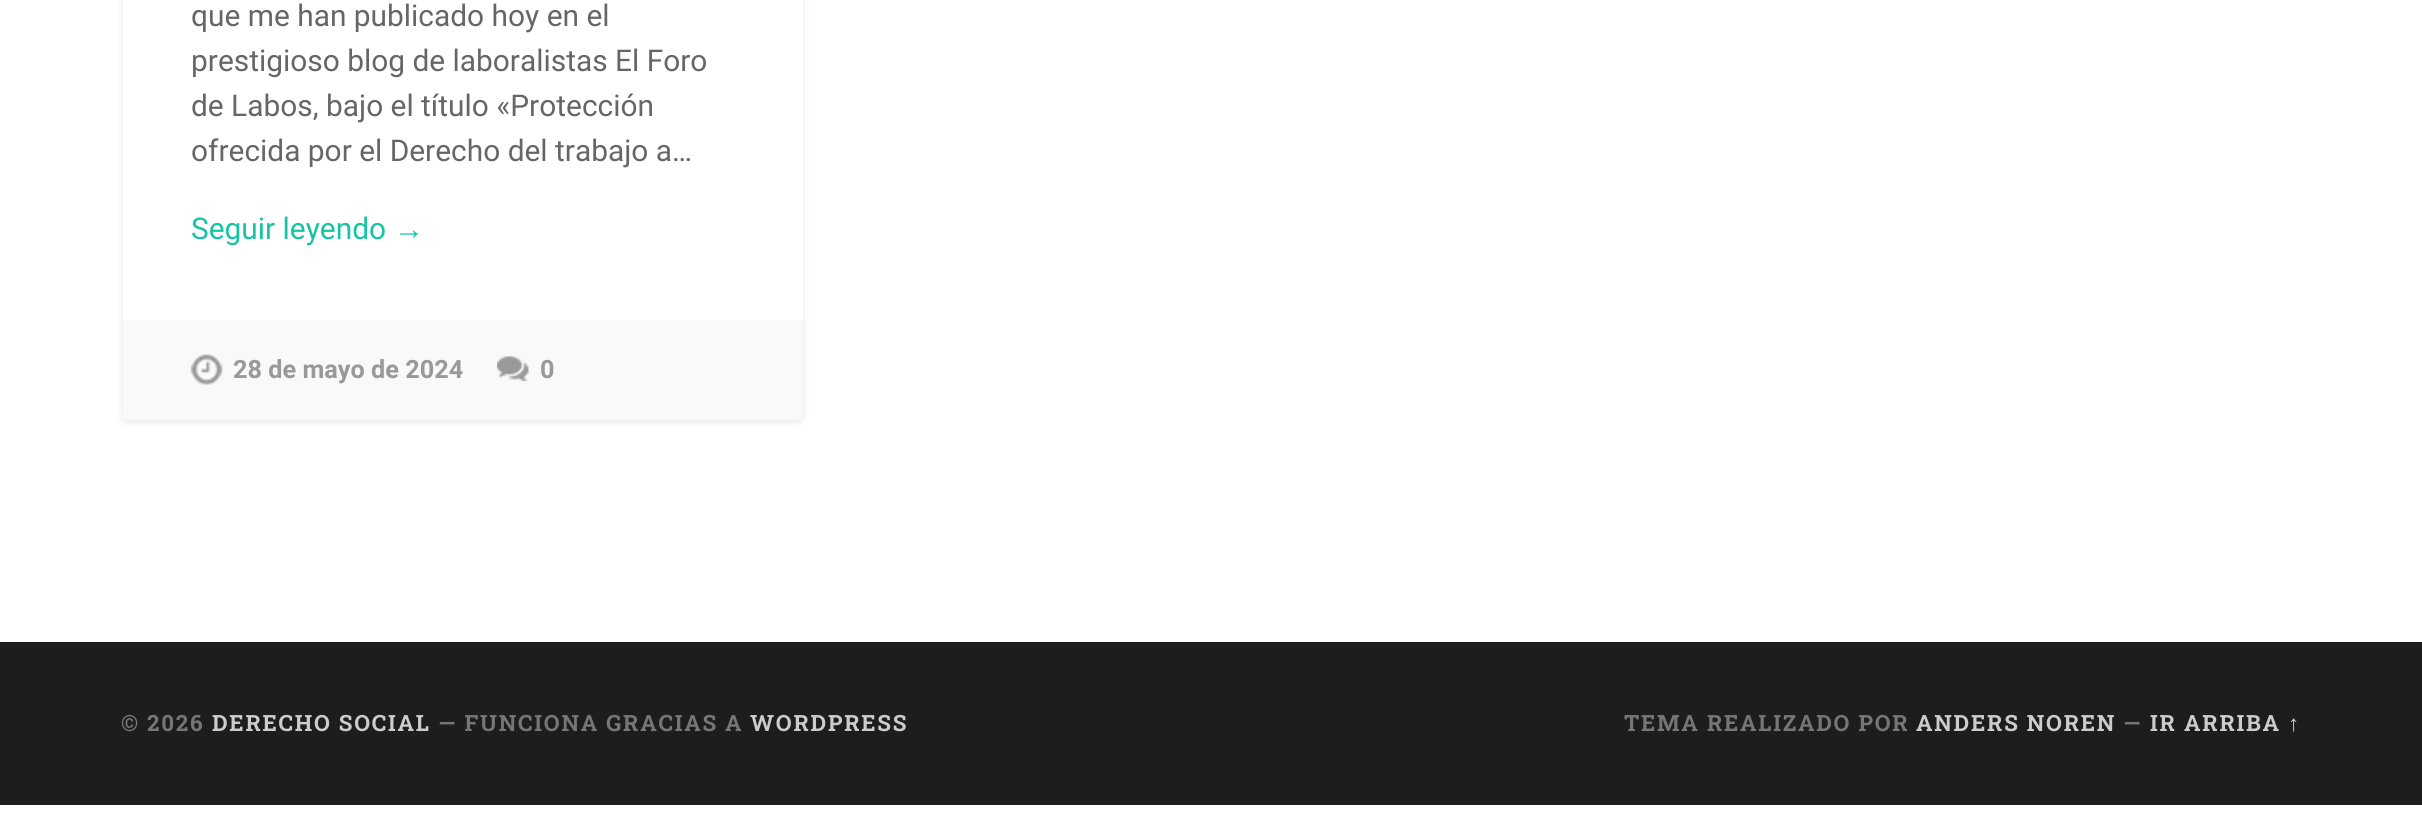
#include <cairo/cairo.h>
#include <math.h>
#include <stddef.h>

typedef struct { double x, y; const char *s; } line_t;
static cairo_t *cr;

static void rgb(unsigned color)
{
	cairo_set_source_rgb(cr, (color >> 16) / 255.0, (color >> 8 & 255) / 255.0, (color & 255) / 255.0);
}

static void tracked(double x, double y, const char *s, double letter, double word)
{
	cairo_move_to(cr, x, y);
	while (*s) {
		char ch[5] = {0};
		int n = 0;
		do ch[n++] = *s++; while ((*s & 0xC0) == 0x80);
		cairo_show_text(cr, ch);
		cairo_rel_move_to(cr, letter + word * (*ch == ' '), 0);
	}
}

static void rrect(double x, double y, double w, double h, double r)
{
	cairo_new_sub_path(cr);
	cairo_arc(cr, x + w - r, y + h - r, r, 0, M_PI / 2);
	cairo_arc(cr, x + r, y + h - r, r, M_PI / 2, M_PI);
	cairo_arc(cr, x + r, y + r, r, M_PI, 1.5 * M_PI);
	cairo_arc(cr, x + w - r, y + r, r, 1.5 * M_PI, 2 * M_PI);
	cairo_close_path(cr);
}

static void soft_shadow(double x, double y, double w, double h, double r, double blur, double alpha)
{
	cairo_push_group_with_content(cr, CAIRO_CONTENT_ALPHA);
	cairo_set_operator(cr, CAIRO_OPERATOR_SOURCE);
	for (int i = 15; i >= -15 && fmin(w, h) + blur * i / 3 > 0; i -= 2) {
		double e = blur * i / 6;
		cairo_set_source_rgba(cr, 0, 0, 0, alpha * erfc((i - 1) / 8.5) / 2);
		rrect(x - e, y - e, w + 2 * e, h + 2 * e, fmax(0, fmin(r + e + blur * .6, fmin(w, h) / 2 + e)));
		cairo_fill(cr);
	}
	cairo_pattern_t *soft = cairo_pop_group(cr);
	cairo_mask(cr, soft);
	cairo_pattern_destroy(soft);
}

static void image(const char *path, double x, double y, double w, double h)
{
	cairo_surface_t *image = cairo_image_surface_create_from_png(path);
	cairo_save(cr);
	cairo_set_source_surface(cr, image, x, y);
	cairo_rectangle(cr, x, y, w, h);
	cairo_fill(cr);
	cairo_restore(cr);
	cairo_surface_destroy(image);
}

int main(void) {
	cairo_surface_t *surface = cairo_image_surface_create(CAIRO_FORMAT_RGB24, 2422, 821);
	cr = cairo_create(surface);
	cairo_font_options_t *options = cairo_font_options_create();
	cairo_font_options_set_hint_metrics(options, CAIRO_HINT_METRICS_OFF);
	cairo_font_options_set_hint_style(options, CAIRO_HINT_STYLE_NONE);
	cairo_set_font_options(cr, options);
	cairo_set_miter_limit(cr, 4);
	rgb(0xffffff);
	cairo_paint(cr);
	rgb(0x000000);
	soft_shadow(123, -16, 680, 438, 5, 3.5, 0.1);
	rgb(0xffffff);
	rrect(123, -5, 680, 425, 5);
	cairo_fill(cr);
	rgb(0xf9f9f9);
	cairo_new_path(cr);
	cairo_move_to(cr, 123, 320);
	cairo_line_to(cr, 803, 320);
	cairo_line_to(cr, 803, 415);
	cairo_curve_to(cr, 803, 418, 801, 420, 798, 420);
	cairo_line_to(cr, 128, 420);
	cairo_curve_to(cr, 125, 420, 123, 418, 123, 415);
	cairo_close_path(cr);
	cairo_fill(cr);
	image("img/1.png", 190, 354, 33, 31);
	image("img/2.png", 497, 356, 32, 25);
	rgb(0x1d1d1d);
	cairo_rectangle(cr, 0, 642, 2422, 163);
	cairo_fill(cr);
	cairo_select_font_face(cr, "Roboto", CAIRO_FONT_SLANT_NORMAL, CAIRO_FONT_WEIGHT_NORMAL);
	cairo_set_font_size(cr, 29.9);
	rgb(0x666666);
	{
		static const line_t items[] = {
			{191, 26, "que me han publicado hoy en el"},
			{191, 71, "prestigioso blog de laboralistas El Foro"},
			{191, 116, "de Labos, bajo el título «Protección"},
			{191, 161, "ofrecida por el Derecho del trabajo a…"},
		};
		for (size_t i = 0; i < sizeof items / sizeof *items; i++) {
			cairo_move_to(cr, items[i].x, items[i].y);
			cairo_show_text(cr, items[i].s);
		}
	}
	rgb(0x13c4a5);
	cairo_move_to(cr, 191, 239);
	cairo_show_text(cr, "Seguir leyendo");
	cairo_select_font_face(cr, "Liberation Sans", CAIRO_FONT_SLANT_NORMAL, CAIRO_FONT_WEIGHT_NORMAL);
	cairo_move_to(cr, 394, 239);
	cairo_show_text(cr, "→");
	cairo_select_font_face(cr, "Roboto", CAIRO_FONT_SLANT_NORMAL, CAIRO_FONT_WEIGHT_BOLD);
	cairo_set_font_size(cr, 25.25);
	rgb(0x999999);
	cairo_move_to(cr, 233, 378);
	cairo_show_text(cr, "28 de mayo de 2024");
	cairo_move_to(cr, 540, 378);
	cairo_show_text(cr, "0");
	cairo_select_font_face(cr, "Roboto Slab", CAIRO_FONT_SLANT_NORMAL, CAIRO_FONT_WEIGHT_BOLD);
	cairo_set_font_size(cr, 22.4);
	rgb(0x767676);
	tracked(121, 731, "© 2026", 1.75, 0);
	rgb(0xcccccc);
	tracked(212, 731, "DERECHO SOCIAL", 1.75, 0);
	rgb(0x767676);
	tracked(438, 731, "— FUNCIONA GRACIAS A", 1.75, 0);
	rgb(0xcccccc);
	tracked(750, 731, "WORDPRESS", 1.75, 0);
	rgb(0x767676);
	tracked(1624, 731, "TEMA REALIZADO POR", 1.75, 0);
	rgb(0xcccccc);
	tracked(1916, 731, "ANDERS NOREN", 1.75, 0);
	rgb(0x767676);
	tracked(2123, 731, "—", 1.75, 0);
	rgb(0xcccccc);
	tracked(2150, 731, "IR ARRIBA", 1.75, 0);
	cairo_select_font_face(cr, "Liberation Sans", CAIRO_FONT_SLANT_NORMAL, CAIRO_FONT_WEIGHT_BOLD);
	tracked(2288, 731, "↑", 1.75, 0);
	cairo_surface_write_to_png(surface, "page.png");
	cairo_font_options_destroy(options);
	cairo_destroy(cr);
	cairo_surface_destroy(surface);
	return 0;
}
